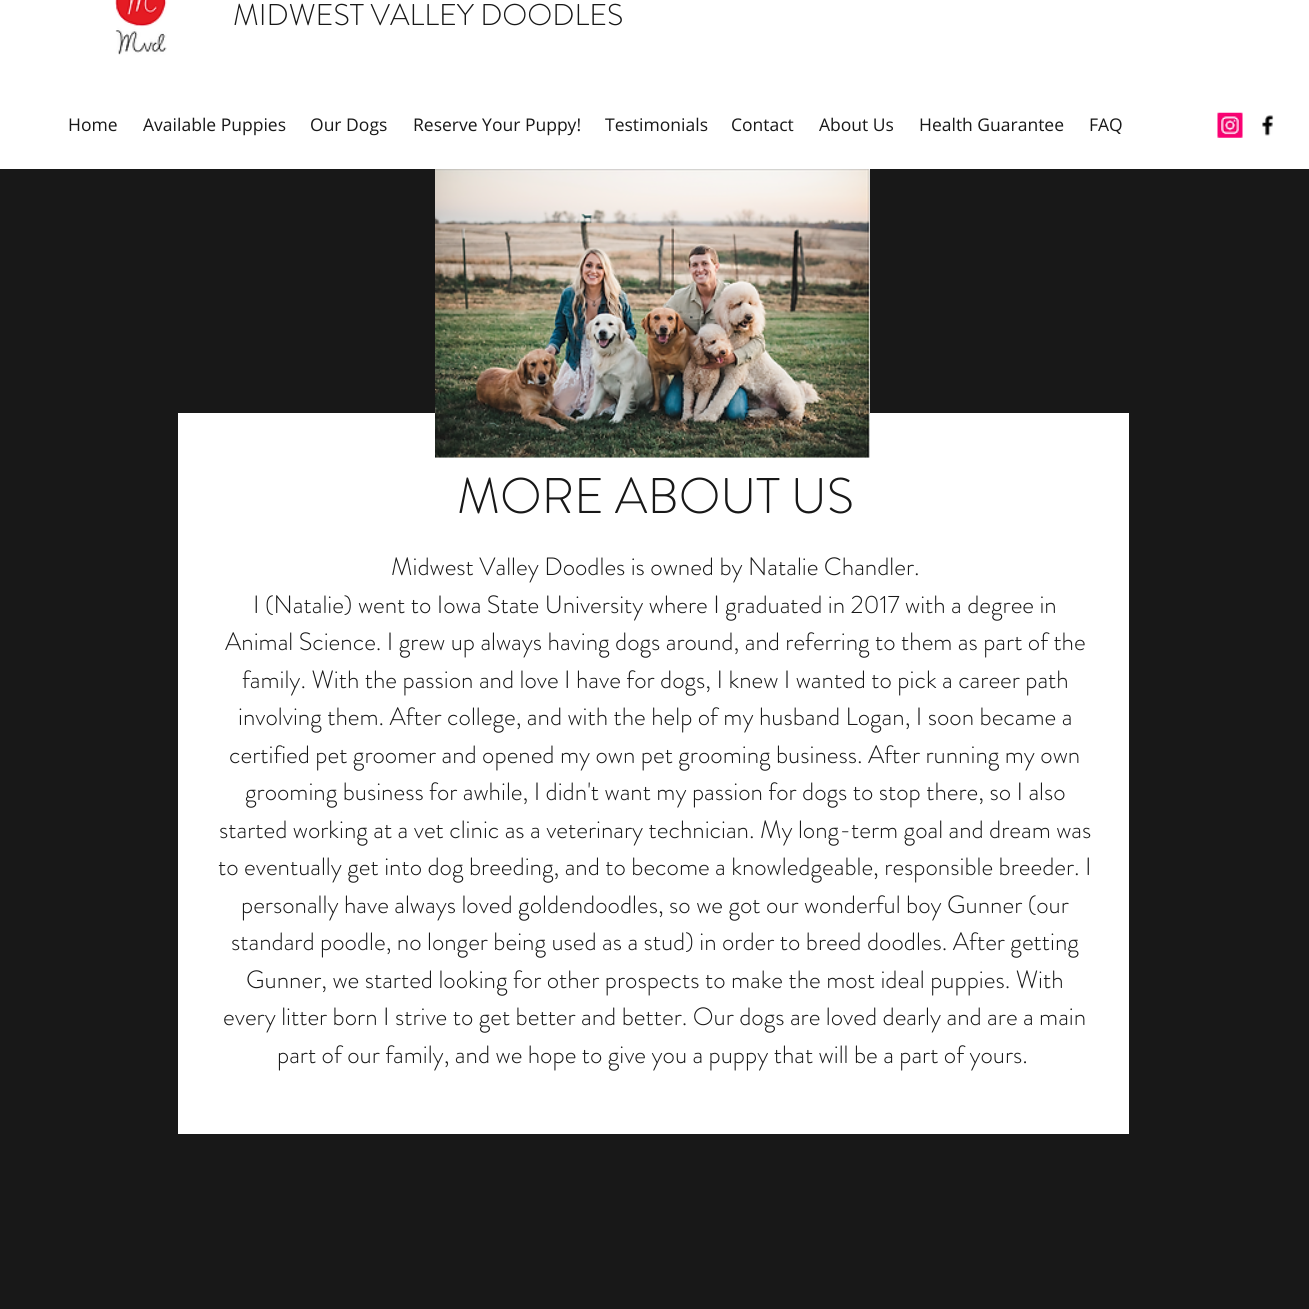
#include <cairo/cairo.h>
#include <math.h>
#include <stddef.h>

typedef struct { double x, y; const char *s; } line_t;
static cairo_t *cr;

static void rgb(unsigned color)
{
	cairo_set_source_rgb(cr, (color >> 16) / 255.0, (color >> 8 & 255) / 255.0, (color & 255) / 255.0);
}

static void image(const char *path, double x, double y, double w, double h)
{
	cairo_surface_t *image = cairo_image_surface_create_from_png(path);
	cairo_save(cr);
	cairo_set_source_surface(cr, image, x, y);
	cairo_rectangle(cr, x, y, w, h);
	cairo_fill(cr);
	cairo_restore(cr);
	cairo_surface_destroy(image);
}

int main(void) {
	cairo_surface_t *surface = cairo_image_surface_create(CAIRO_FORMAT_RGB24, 1309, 1309);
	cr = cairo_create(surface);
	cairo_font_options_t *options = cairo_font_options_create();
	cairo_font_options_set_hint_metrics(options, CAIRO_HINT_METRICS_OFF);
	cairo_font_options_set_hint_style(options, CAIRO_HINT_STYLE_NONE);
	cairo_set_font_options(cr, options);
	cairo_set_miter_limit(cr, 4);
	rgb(0xffffff);
	cairo_paint(cr);
	image("img/1.png", 115, 0, 52, 55);
	image("img/2.png", 1217, 112, 26, 26);
	image("img/3.png", 1262, 115, 12, 21);
	rgb(0x181818);
	cairo_rectangle(cr, 0, 169, 1309, 1140);
	cairo_fill(cr);
	rgb(0xffffff);
	cairo_rectangle(cr, 178, 413, 951, 721);
	cairo_fill(cr);
	image("img/4.png", 435, 169, 435, 289);
	cairo_select_font_face(cr, "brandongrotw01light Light", CAIRO_FONT_SLANT_NORMAL, CAIRO_FONT_WEIGHT_NORMAL);
	cairo_set_font_size(cr, 30);
	rgb(0x181818);
	cairo_move_to(cr, 233, 25);
	cairo_show_text(cr, "MIDWEST VALLEY DOODLES");
	cairo_select_font_face(cr, "Open Sans", CAIRO_FONT_SLANT_NORMAL, CAIRO_FONT_WEIGHT_NORMAL);
	cairo_set_font_size(cr, 17.5);
	{
		static const line_t items[] = {
			{68, 131, "Home"},
			{143, 131, "Available Puppies"},
			{310, 131, "Our Dogs"},
			{413, 131, "Reserve Your Puppy!"},
			{605, 131, "Testimonials"},
			{731, 131, "Contact"},
			{819, 131, "About Us"},
			{919, 131, "Health Guarantee"},
			{1089, 131, "FAQ"},
		};
		for (size_t i = 0; i < sizeof items / sizeof *items; i++) {
			cairo_move_to(cr, items[i].x, items[i].y);
			cairo_show_text(cr, items[i].s);
		}
	}
	cairo_select_font_face(cr, "brandongrotw01light Light", CAIRO_FONT_SLANT_NORMAL, CAIRO_FONT_WEIGHT_NORMAL);
	cairo_set_font_size(cr, 50);
	cairo_move_to(cr, 457, 513);
	cairo_show_text(cr, "MORE ABOUT US");
	cairo_set_font_size(cr, 25);
	{
		static const line_t items[] = {
			{391, 575, "Midwest Valley Doodles is owned by Natalie Chandler."},
			{253, 613, "I (Natalie) went to Iowa State University where I graduated in 2017 with a degree in"},
			{225, 650, "Animal Science. I grew up always having dogs around, and referring to them as part of the"},
			{242, 688, "family. With the passion and love I have for dogs, I knew I wanted to pick a career path"},
			{238, 725, "involving them. After college, and with the help of my husband Logan, I soon became a"},
			{229, 763, "certified pet groomer and opened my own pet grooming business. After running my own"},
			{245, 800, "grooming business for awhile, I didn't want my passion for dogs to stop there, so I also"},
			{219, 838, "started working at a vet clinic as a veterinary technician. My long-term goal and dream was"},
			{218, 875, "to eventually get into dog breeding, and to become a knowledgeable, responsible breeder. I"},
			{241, 913, "personally have always loved goldendoodles, so we got our wonderful boy Gunner (our"},
			{231, 950, "standard poodle, no longer being used as a stud) in order to breed doodles. After getting"},
			{246, 988, "Gunner, we started looking for other prospects to make the most ideal puppies. With"},
			{223, 1025, "every litter born I strive to get better and better. Our dogs are loved dearly and are a main"},
			{277, 1063, "part of our family, and we hope to give you a puppy that will be a part of yours."},
		};
		for (size_t i = 0; i < sizeof items / sizeof *items; i++) {
			cairo_move_to(cr, items[i].x, items[i].y);
			cairo_show_text(cr, items[i].s);
		}
	}
	cairo_surface_write_to_png(surface, "page.png");
	cairo_font_options_destroy(options);
	cairo_destroy(cr);
	cairo_surface_destroy(surface);
	return 0;
}
